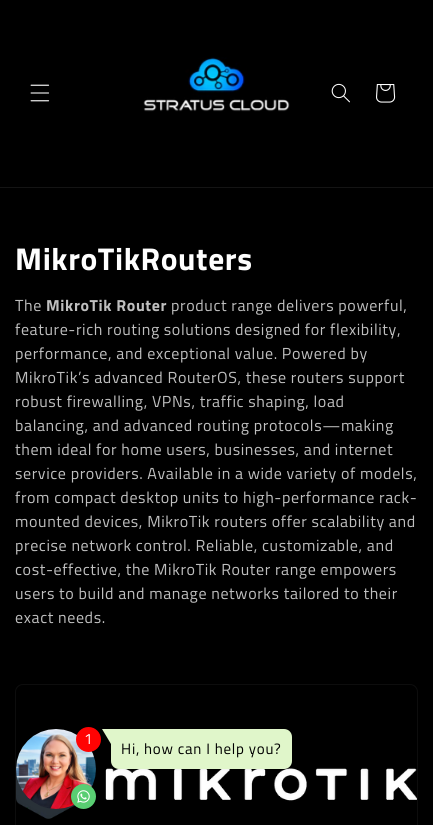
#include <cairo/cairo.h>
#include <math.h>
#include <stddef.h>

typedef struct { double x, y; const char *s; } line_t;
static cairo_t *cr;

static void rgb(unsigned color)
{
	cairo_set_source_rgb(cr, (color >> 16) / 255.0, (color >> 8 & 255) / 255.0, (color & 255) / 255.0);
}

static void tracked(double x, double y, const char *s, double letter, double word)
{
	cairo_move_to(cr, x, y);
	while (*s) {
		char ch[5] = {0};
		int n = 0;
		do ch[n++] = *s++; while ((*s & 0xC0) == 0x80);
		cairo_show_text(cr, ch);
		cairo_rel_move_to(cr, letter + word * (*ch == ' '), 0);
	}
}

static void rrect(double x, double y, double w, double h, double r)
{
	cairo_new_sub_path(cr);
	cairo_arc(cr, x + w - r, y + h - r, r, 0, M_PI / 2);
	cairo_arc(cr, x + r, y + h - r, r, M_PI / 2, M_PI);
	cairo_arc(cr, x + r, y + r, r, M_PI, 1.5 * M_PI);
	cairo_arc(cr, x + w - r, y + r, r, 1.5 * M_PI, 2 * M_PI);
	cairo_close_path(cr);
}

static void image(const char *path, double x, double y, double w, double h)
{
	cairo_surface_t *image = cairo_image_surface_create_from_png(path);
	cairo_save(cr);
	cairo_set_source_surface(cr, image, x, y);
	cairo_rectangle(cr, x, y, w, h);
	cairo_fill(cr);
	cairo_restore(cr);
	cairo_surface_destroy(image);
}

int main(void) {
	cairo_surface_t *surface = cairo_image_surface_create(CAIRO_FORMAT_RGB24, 433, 825);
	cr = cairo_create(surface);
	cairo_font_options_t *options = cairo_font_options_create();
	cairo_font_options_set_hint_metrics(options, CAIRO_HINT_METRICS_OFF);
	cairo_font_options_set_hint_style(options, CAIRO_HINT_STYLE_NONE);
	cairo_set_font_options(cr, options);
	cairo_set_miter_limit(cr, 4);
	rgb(0x000000);
	cairo_paint(cr);
	rgb(0x141414);
	cairo_rectangle(cr, 0, 187, 433, 1);
	cairo_fill(cr);
	image("img/1.png", 30, 84, 20, 18);
	image("img/2.png", 143, 57, 147, 55);
	image("img/3.png", 331, 83, 19, 20);
	image("img/4.png", 376, 84, 20, 19);
	rrect(15.5, 684.5, 402, 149, 7.5);
	rgb(0x0d0d0d);
	cairo_set_line_width(cr, 1);
	cairo_stroke(cr);
	image("img/5.png", 16, 767, 401, 52);
	image("img/6.png", 16, 729, 80, 80);
	rgb(0x59ce72);
	cairo_arc(cr, 83.5, 796.5, 12.5, 0, 2 * M_PI);
	cairo_fill(cr);
	image("img/7.png", 77, 790, 13, 13);
	rgb(0xff0303);
	cairo_arc(cr, 88.5, 739.5, 12.5, 0, 2 * M_PI);
	cairo_fill(cr);
	rgb(0xe0f6ca);
	cairo_new_path(cr);
	cairo_move_to(cr, 111, 729);
	cairo_line_to(cr, 284, 729);
	cairo_curve_to(cr, 288.5, 729, 292, 732.5, 292, 737);
	cairo_line_to(cr, 292, 761);
	cairo_curve_to(cr, 292, 765.5, 288.5, 769, 284, 769);
	cairo_line_to(cr, 119, 769);
	cairo_curve_to(cr, 114.5, 769, 111, 765.5, 111, 761);
	cairo_close_path(cr);
	cairo_fill(cr);
	cairo_new_path(cr);
	cairo_move_to(cr, 102, 729);
	cairo_line_to(cr, 111, 729);
	cairo_line_to(cr, 111, 744);
	cairo_close_path(cr);
	cairo_fill(cr);
	cairo_select_font_face(cr, "Titillium Web", CAIRO_FONT_SLANT_NORMAL, CAIRO_FONT_WEIGHT_BOLD);
	cairo_set_font_size(cr, 31.5);
	rgb(0xffffff);
	tracked(15, 270, "MikroTikRouters", 0.6, 0);
	cairo_select_font_face(cr, "Titillium Web", CAIRO_FONT_SLANT_NORMAL, CAIRO_FONT_WEIGHT_NORMAL);
	cairo_set_font_size(cr, 16);
	rgb(0xbfbfbf);
	tracked(15, 311, "The", 0.6, 0);
	cairo_select_font_face(cr, "Titillium Web", CAIRO_FONT_SLANT_NORMAL, CAIRO_FONT_WEIGHT_BOLD);
	tracked(46, 311, "MikroTik Router", 0.6, 0);
	cairo_select_font_face(cr, "Titillium Web", CAIRO_FONT_SLANT_NORMAL, CAIRO_FONT_WEIGHT_NORMAL);
	{
		static const line_t items[] = {
			{171, 311, "product range delivers powerful,"},
			{15, 335, "feature-rich routing solutions designed for flexibility,"},
			{15, 359, "performance, and exceptional value. Powered by"},
			{15, 383, "MikroTik’s advanced RouterOS, these routers support"},
			{15, 407, "robust firewalling, VPNs, traffic shaping, load"},
			{15, 431, "balancing, and advanced routing protocols—making"},
			{15, 455, "them ideal for home users, businesses, and internet"},
			{15, 479, "service providers. Available in a wide variety of models,"},
			{15, 503, "from compact desktop units to high-performance rack-"},
			{15, 527, "mounted devices, MikroTik routers offer scalability and"},
			{15, 551, "precise network control. Reliable, customizable, and"},
			{15, 575, "cost-effective, the MikroTik Router range empowers"},
			{15, 599, "users to build and manage networks tailored to their"},
			{15, 623, "exact needs."},
		};
		for (size_t i = 0; i < sizeof items / sizeof *items; i++) {
			tracked(items[i].x, items[i].y, items[i].s, 0.6, 0);
		}
	}
	cairo_set_font_size(cr, 15);
	rgb(0xffffff);
	tracked(84, 744, "1", 0.75, 0);
	rgb(0x000000);
	tracked(121, 754, "Hi, how can I help you?", 0.75, 0);
	cairo_surface_write_to_png(surface, "page.png");
	cairo_font_options_destroy(options);
	cairo_destroy(cr);
	cairo_surface_destroy(surface);
	return 0;
}
